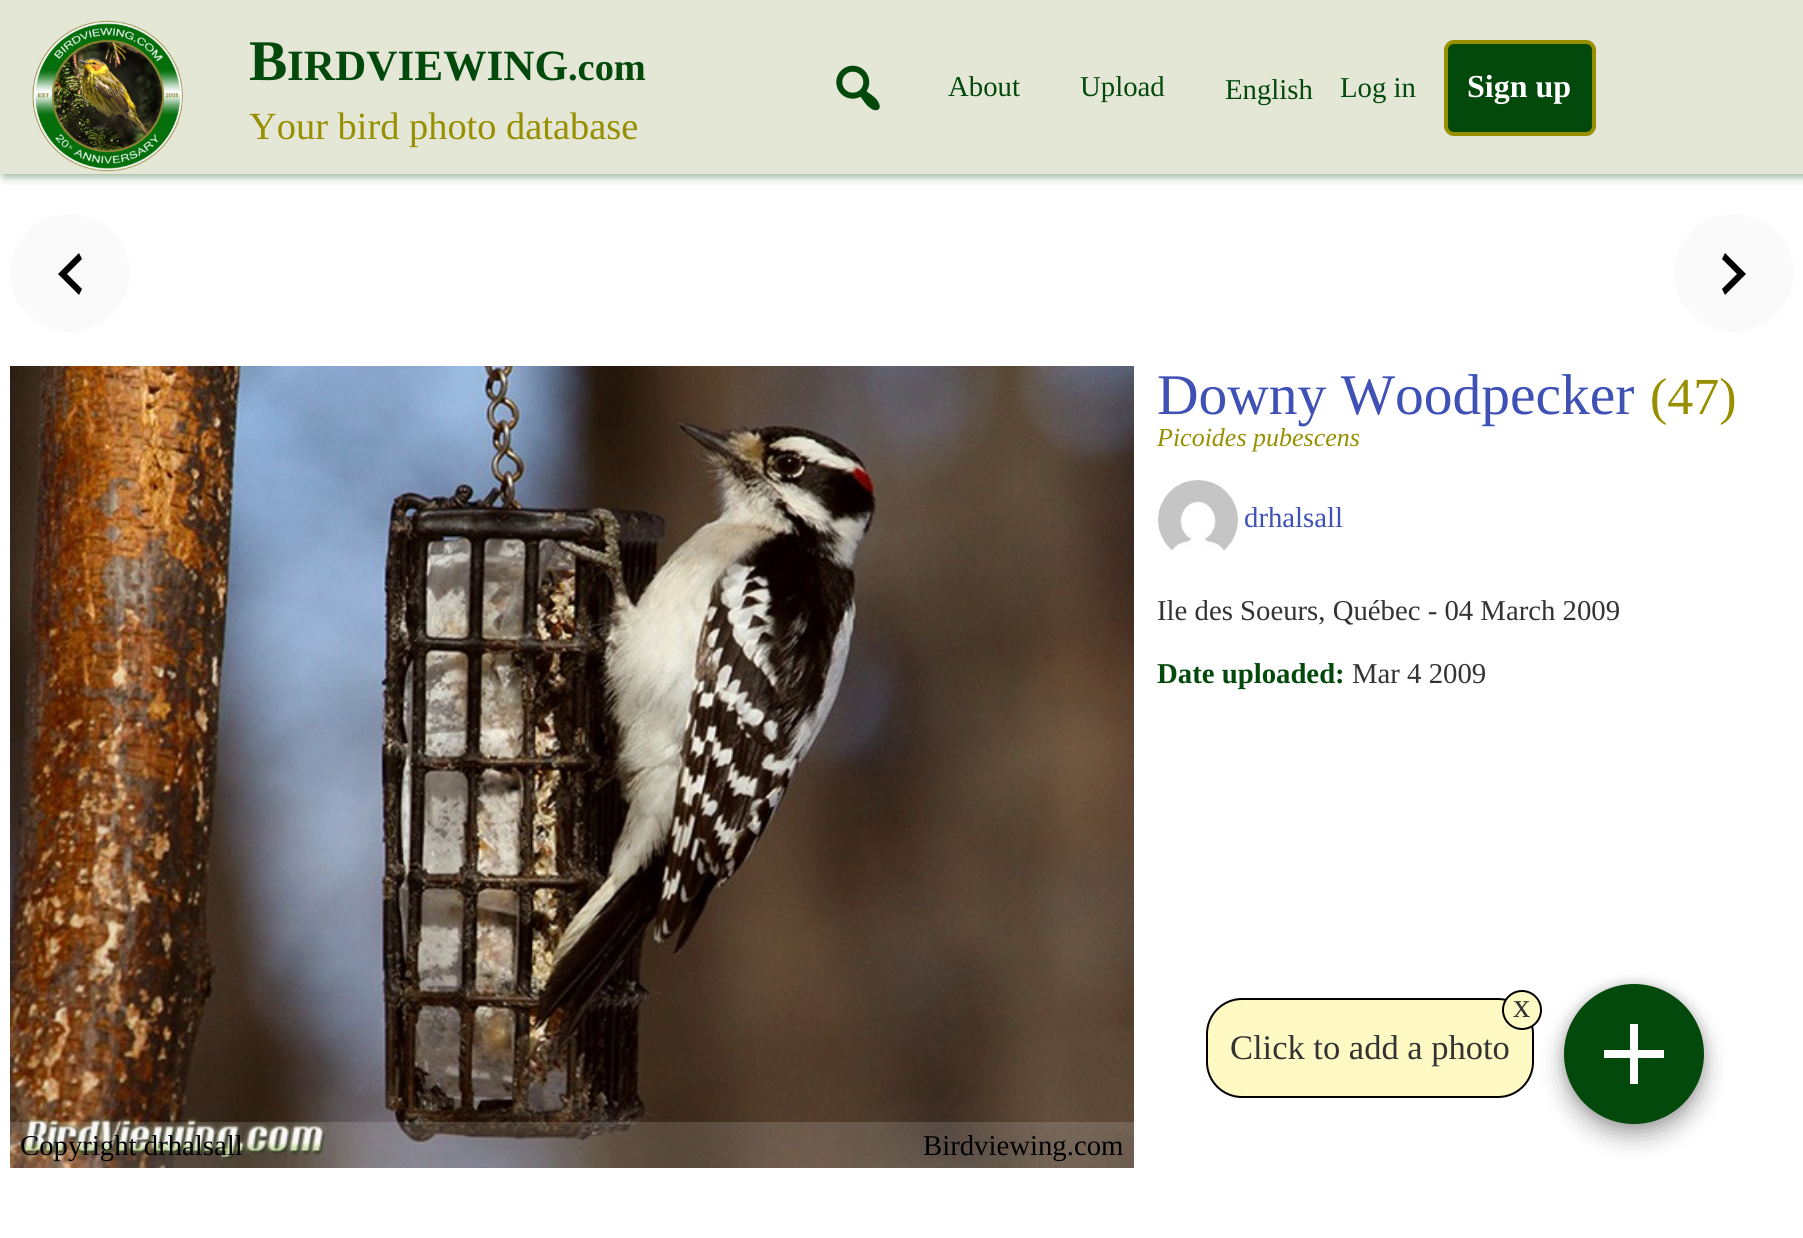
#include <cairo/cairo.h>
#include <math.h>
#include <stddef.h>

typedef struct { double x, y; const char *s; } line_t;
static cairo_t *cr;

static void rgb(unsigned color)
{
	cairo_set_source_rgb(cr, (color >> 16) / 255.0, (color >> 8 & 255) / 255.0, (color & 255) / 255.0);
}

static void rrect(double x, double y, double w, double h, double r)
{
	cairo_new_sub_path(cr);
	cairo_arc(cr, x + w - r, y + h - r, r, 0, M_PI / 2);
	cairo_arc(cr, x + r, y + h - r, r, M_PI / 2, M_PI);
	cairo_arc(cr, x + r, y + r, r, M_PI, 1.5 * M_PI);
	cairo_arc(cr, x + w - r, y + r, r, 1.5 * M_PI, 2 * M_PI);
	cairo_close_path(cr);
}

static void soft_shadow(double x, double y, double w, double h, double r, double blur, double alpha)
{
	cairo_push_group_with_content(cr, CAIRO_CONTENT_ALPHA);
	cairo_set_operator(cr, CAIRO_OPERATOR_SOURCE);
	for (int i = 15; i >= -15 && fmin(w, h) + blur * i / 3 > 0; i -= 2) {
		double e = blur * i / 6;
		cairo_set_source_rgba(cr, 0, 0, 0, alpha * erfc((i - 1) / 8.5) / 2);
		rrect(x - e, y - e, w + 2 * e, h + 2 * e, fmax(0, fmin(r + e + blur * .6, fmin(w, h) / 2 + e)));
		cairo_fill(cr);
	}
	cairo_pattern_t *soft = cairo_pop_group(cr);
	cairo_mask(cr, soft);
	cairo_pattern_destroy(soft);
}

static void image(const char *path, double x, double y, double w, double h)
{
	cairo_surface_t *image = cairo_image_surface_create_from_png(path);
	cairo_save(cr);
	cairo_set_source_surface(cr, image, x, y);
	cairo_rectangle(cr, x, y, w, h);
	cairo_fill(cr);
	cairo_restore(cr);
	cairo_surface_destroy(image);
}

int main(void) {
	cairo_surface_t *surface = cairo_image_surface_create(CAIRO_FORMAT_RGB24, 1803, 1238);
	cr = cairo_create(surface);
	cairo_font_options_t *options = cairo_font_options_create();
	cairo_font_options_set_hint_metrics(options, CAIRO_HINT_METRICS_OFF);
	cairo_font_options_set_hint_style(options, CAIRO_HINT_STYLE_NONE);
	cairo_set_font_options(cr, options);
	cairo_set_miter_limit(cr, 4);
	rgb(0xffffff);
	cairo_paint(cr);
	rgb(0x03490c);
	soft_shadow(4, -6, 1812, 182, 0, 5, 0.49);
	rgb(0xe4e7d6);
	cairo_rectangle(cr, 0, 0, 1803, 174);
	cairo_fill(cr);
	image("img/1.png", 32, 20, 151, 152);
	image("img/2.png", 836, 65, 44, 46);
	rgb(0x03490c);
	rrect(1446, 42, 148, 92, 8);
	cairo_fill_preserve(cr);
	rgb(0x988f00);
	cairo_set_line_width(cr, 4);
	cairo_stroke(cr);
	rgb(0xfafafa);
	cairo_arc(cr, 70, 274, 60, 0, 2 * M_PI);
	cairo_fill(cr);
	rgb(0xffffff);
	cairo_new_path(cr);
	cairo_move_to(cr, 10, 273);
	cairo_curve_to(cr, 9, 332, 87, 357, 120, 308);
	cairo_curve_to(cr, 127, 297, 130, 285, 130, 273);
	cairo_curve_to(cr, 129, 306, 103, 332, 70, 332);
	cairo_curve_to(cr, 37, 332, 11, 306, 10, 273);
	cairo_close_path(cr);
	cairo_fill(cr);
	rgb(0x000000);
	cairo_new_path(cr);
	cairo_move_to(cr, 82, 259);
	cairo_line_to(cr, 67, 274);
	cairo_line_to(cr, 82, 289);
	cairo_line_to(cr, 79, 295);
	cairo_line_to(cr, 58, 274);
	cairo_line_to(cr, 79, 253);
	cairo_close_path(cr);
	cairo_fill(cr);
	rgb(0xfafafa);
	cairo_arc(cr, 1734, 274, 60, 0, 2 * M_PI);
	cairo_fill(cr);
	rgb(0xffffff);
	cairo_new_path(cr);
	cairo_move_to(cr, 1674, 273);
	cairo_curve_to(cr, 1673, 332, 1751, 357, 1784, 308);
	cairo_curve_to(cr, 1791, 297, 1794, 285, 1794, 273);
	cairo_curve_to(cr, 1793, 306, 1767, 332, 1734, 332);
	cairo_curve_to(cr, 1701, 332, 1675, 306, 1674, 273);
	cairo_close_path(cr);
	cairo_fill(cr);
	rgb(0x000000);
	cairo_new_path(cr);
	cairo_move_to(cr, 1722, 289);
	cairo_line_to(cr, 1737, 274);
	cairo_line_to(cr, 1722, 259);
	cairo_line_to(cr, 1725, 253);
	cairo_line_to(cr, 1746, 274);
	cairo_line_to(cr, 1725, 295);
	cairo_close_path(cr);
	cairo_fill(cr);
	image("img/3.png", 1158, 480, 80, 71);
	image("img/4.png", 10, 366, 1124, 802);
	cairo_set_source_rgba(cr, 0.933, 0.933, 0.933, 0.16);
	cairo_rectangle(cr, 10, 1122, 1124, 48);
	cairo_fill(cr);
	rgb(0xfff9c4);
	rrect(1207, 999, 326, 98, 35);
	cairo_fill_preserve(cr);
	rgb(0x000000);
	cairo_set_line_width(cr, 2);
	cairo_stroke(cr);
	rgb(0xfff9c4);
	cairo_arc(cr, 1522, 1010, 19, 0, 2 * M_PI);
	cairo_fill_preserve(cr);
	rgb(0x000000);
	cairo_stroke(cr);
	rgb(0x000000);
	soft_shadow(1564, 996, 140, 140, 70, 12, 0.32);
	soft_shadow(1564, 984, 140, 140, 70, 6, 0.16);
	rgb(0x03490c);
	cairo_arc(cr, 1634, 1054, 70, 0, 2 * M_PI);
	cairo_fill(cr);
	rgb(0xffffff);
	cairo_new_path(cr);
	cairo_move_to(cr, 1638, 1050);
	cairo_line_to(cr, 1638, 1024);
	cairo_line_to(cr, 1630, 1024);
	cairo_line_to(cr, 1630, 1050);
	cairo_line_to(cr, 1604, 1050);
	cairo_line_to(cr, 1604, 1058);
	cairo_line_to(cr, 1630, 1058);
	cairo_line_to(cr, 1630, 1084);
	cairo_line_to(cr, 1638, 1084);
	cairo_line_to(cr, 1638, 1058);
	cairo_line_to(cr, 1664, 1058);
	cairo_line_to(cr, 1664, 1050);
	cairo_close_path(cr);
	cairo_fill(cr);
	cairo_select_font_face(cr, "Liberation Serif", CAIRO_FONT_SLANT_NORMAL, CAIRO_FONT_WEIGHT_BOLD);
	cairo_set_font_size(cr, 57.5);
	rgb(0x03490c);
	cairo_move_to(cr, 249, 80);
	cairo_show_text(cr, "B");
	cairo_set_font_size(cr, 43.25);
	cairo_move_to(cr, 287, 80);
	cairo_show_text(cr, "IRDVIEWING");
	cairo_set_font_size(cr, 38.4);
	cairo_move_to(cr, 568, 80);
	cairo_show_text(cr, ".com");
	cairo_select_font_face(cr, "Liberation Serif", CAIRO_FONT_SLANT_NORMAL, CAIRO_FONT_WEIGHT_NORMAL);
	rgb(0x988f00);
	cairo_move_to(cr, 249, 139);
	cairo_show_text(cr, "Your bird photo database");
	cairo_set_font_size(cr, 28.75);
	rgb(0x03490c);
	{
		static const line_t items[] = {
			{948, 96, "About"},
			{1080, 96, "Upload"},
			{1225, 99, "English"},
			{1340, 97, "Log in"},
		};
		for (size_t i = 0; i < sizeof items / sizeof *items; i++) {
			cairo_move_to(cr, items[i].x, items[i].y);
			cairo_show_text(cr, items[i].s);
		}
	}
	cairo_select_font_face(cr, "Liberation Serif", CAIRO_FONT_SLANT_NORMAL, CAIRO_FONT_WEIGHT_BOLD);
	cairo_set_font_size(cr, 32);
	rgb(0xffffff);
	cairo_move_to(cr, 1467, 97);
	cairo_show_text(cr, "Sign up");
	cairo_select_font_face(cr, "Liberation Serif", CAIRO_FONT_SLANT_NORMAL, CAIRO_FONT_WEIGHT_NORMAL);
	cairo_set_font_size(cr, 57.5);
	rgb(0x3f51b5);
	cairo_move_to(cr, 1157, 414);
	cairo_show_text(cr, "Downy Woodpecker");
	cairo_set_font_size(cr, 52);
	rgb(0x988f00);
	cairo_move_to(cr, 1650, 414);
	cairo_show_text(cr, "(47)");
	cairo_select_font_face(cr, "Liberation Serif", CAIRO_FONT_SLANT_ITALIC, CAIRO_FONT_WEIGHT_NORMAL);
	cairo_set_font_size(cr, 26);
	cairo_move_to(cr, 1157, 446);
	cairo_show_text(cr, "Picoides pubescens");
	cairo_select_font_face(cr, "Liberation Serif", CAIRO_FONT_SLANT_NORMAL, CAIRO_FONT_WEIGHT_NORMAL);
	cairo_set_font_size(cr, 28.75);
	rgb(0x3f51b5);
	cairo_move_to(cr, 1244, 527);
	cairo_show_text(cr, "drhalsall");
	rgb(0x333333);
	cairo_move_to(cr, 1157, 620);
	cairo_show_text(cr, "Ile des Soeurs, Québec - 04 March 2009");
	cairo_select_font_face(cr, "Liberation Serif", CAIRO_FONT_SLANT_NORMAL, CAIRO_FONT_WEIGHT_BOLD);
	rgb(0x03490c);
	cairo_move_to(cr, 1157, 683);
	cairo_show_text(cr, "Date uploaded:");
	cairo_select_font_face(cr, "Liberation Serif", CAIRO_FONT_SLANT_NORMAL, CAIRO_FONT_WEIGHT_NORMAL);
	rgb(0x333333);
	cairo_move_to(cr, 1352, 683);
	cairo_show_text(cr, "Mar 4 2009");
	rgb(0x000000);
	cairo_move_to(cr, 20, 1155);
	cairo_show_text(cr, "Copyright drhalsall");
	cairo_move_to(cr, 923, 1155);
	cairo_show_text(cr, "Birdviewing.com");
	cairo_set_font_size(cr, 34.5);
	rgb(0x333333);
	cairo_move_to(cr, 1513, 1017);
	cairo_show_text(cr, "x");
	cairo_move_to(cr, 1230, 1059);
	cairo_show_text(cr, "Click to add a photo");
	cairo_surface_write_to_png(surface, "page.png");
	cairo_font_options_destroy(options);
	cairo_destroy(cr);
	cairo_surface_destroy(surface);
	return 0;
}
